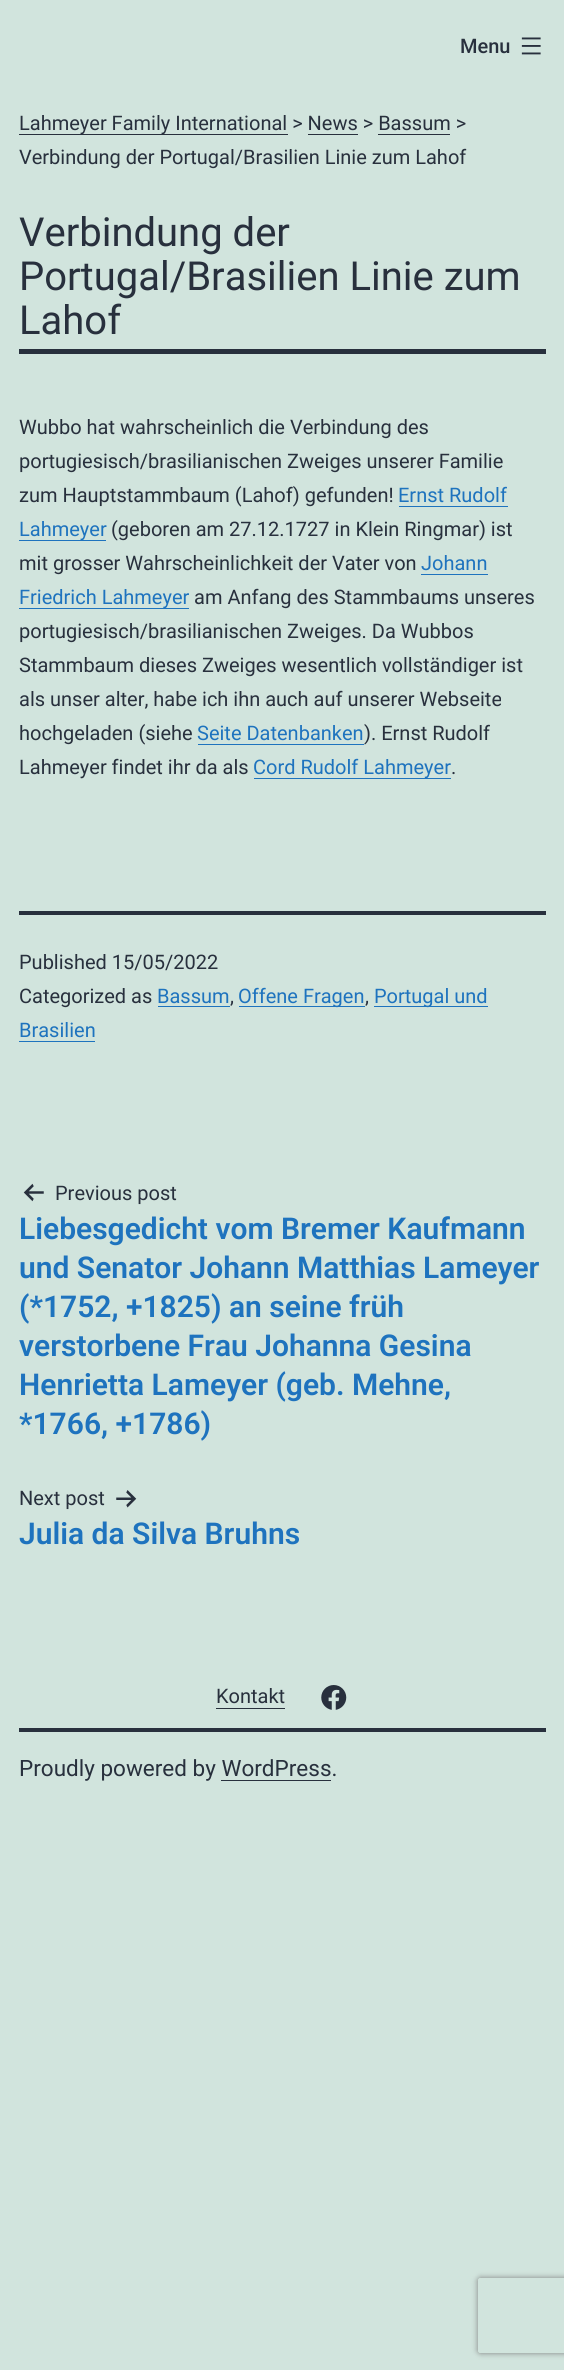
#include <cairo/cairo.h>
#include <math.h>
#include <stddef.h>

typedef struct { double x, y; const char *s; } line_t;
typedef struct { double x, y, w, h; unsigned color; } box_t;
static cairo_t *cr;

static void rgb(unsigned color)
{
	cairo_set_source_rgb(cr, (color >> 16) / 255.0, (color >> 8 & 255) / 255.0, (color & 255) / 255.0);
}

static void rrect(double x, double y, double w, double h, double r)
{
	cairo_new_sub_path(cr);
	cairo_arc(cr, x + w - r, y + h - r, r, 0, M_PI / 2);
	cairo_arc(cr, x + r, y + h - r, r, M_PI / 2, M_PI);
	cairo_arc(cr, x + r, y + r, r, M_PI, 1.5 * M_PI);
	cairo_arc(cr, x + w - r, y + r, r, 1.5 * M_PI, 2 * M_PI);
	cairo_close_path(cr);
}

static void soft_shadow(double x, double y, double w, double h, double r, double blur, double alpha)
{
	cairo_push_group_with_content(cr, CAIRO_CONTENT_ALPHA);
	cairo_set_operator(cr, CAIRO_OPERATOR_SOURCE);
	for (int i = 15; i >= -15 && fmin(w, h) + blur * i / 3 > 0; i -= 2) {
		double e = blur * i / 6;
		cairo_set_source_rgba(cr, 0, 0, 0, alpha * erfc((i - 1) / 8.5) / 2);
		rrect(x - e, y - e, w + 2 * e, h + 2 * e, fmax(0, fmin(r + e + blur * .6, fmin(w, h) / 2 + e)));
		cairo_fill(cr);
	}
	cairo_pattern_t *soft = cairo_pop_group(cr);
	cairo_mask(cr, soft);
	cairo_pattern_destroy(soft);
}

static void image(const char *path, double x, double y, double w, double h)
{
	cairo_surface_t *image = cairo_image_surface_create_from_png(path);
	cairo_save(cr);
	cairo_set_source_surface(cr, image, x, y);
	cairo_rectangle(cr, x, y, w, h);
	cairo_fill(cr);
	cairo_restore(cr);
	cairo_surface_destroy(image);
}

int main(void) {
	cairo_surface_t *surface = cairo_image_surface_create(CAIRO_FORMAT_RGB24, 564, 2370);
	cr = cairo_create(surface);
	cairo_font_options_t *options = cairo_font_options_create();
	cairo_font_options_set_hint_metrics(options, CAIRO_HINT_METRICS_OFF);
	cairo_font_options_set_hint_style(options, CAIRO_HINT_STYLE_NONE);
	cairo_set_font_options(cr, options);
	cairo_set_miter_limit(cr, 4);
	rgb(0xd1e4dd);
	cairo_paint(cr);
	image("img/1.png", 521, 37, 20, 18);
	{
		static const box_t items[] = {
			{19, 134, 269, 1, 0x28303d},
			{308, 134, 50, 1, 0x28303d},
			{378, 134, 72, 1, 0x28303d},
			{19, 349, 527, 5, 0x28303d},
			{399, 506, 109, 1, 0x1e73be},
			{19, 540, 87, 1, 0x1e73be},
			{421, 574, 67, 1, 0x1e73be},
			{19, 608, 170, 1, 0x1e73be},
			{198, 744, 166, 1, 0x1e73be},
			{254, 778, 197, 1, 0x1e73be},
			{19, 911, 527, 4, 0x28303d},
			{158, 1006, 72, 1, 0x1e73be},
			{239, 1006, 126, 1, 0x1e73be},
			{374, 1006, 114, 1, 0x1e73be},
			{19, 1041, 76, 1, 0x1e73be},
		};
		for (size_t i = 0; i < sizeof items / sizeof *items; i++) {
			rgb(items[i].color);
			cairo_rectangle(cr, items[i].x, items[i].y, items[i].w, items[i].h);
			cairo_fill(cr);
		}
	}
	image("img/2.png", 23, 1183, 21, 19);
	image("img/3.png", 116, 1490, 21, 18);
	rgb(0x28303d);
	cairo_rectangle(cr, 216, 1708, 69, 1);
	cairo_fill(cr);
	image("img/4.png", 321, 1685, 26, 25);
	cairo_rectangle(cr, 19, 1728, 527, 4);
	cairo_fill(cr);
	cairo_rectangle(cr, 221, 1780, 110, 1);
	cairo_fill(cr);
	cairo_save(cr);
	cairo_set_fill_rule(cr, CAIRO_FILL_RULE_EVEN_ODD);
	cairo_new_path(cr);
	cairo_move_to(cr, 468, 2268);
	cairo_line_to(cr, 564, 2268);
	cairo_line_to(cr, 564, 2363);
	cairo_line_to(cr, 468, 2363);
	cairo_close_path(cr);
	cairo_move_to(cr, 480.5, 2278);
	cairo_line_to(cr, 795.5, 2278);
	cairo_curve_to(cr, 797, 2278, 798, 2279, 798, 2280.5);
	cairo_line_to(cr, 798, 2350.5);
	cairo_curve_to(cr, 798, 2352, 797, 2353, 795.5, 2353);
	cairo_line_to(cr, 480.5, 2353);
	cairo_curve_to(cr, 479, 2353, 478, 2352, 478, 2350.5);
	cairo_line_to(cr, 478, 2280.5);
	cairo_curve_to(cr, 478, 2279, 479, 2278, 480.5, 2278);
	cairo_close_path(cr);
	cairo_clip(cr);
	rgb(0x808080);
	soft_shadow(478, 2278, 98, 75, 2.5, 3, 1);
	cairo_restore(cr);
	cairo_select_font_face(cr, "Roboto Medium", CAIRO_FONT_SLANT_NORMAL, CAIRO_FONT_WEIGHT_NORMAL);
	cairo_set_font_size(cr, 20);
	cairo_move_to(cr, 460, 53);
	cairo_show_text(cr, "Menu");
	cairo_select_font_face(cr, "Roboto", CAIRO_FONT_SLANT_NORMAL, CAIRO_FONT_WEIGHT_NORMAL);
	cairo_move_to(cr, 19, 130);
	cairo_show_text(cr, "Lahmeyer Family International > News > Bassum >");
	cairo_move_to(cr, 19, 164);
	cairo_show_text(cr, "Verbindung der Portugal/Brasilien Linie zum Lahof");
	cairo_set_font_size(cr, 40);
	{
		static const line_t items[] = {
			{19, 246, "Verbindung der"},
			{19, 290, "Portugal/Brasilien Linie zum"},
			{19, 334, "Lahof"},
		};
		for (size_t i = 0; i < sizeof items / sizeof *items; i++) {
			cairo_move_to(cr, items[i].x, items[i].y);
			cairo_show_text(cr, items[i].s);
		}
	}
	cairo_set_font_size(cr, 20);
	{
		static const line_t items[] = {
			{19, 434, "Wubbo hat wahrscheinlich die Verbindung des"},
			{19, 468, "portugiesisch/brasilianischen Zweiges unserer Familie"},
			{19, 502, "zum Hauptstammbaum (Lahof) gefunden!"},
		};
		for (size_t i = 0; i < sizeof items / sizeof *items; i++) {
			cairo_move_to(cr, items[i].x, items[i].y);
			cairo_show_text(cr, items[i].s);
		}
	}
	rgb(0x1e73be);
	cairo_move_to(cr, 398, 502);
	cairo_show_text(cr, "Ernst Rudolf");
	cairo_move_to(cr, 19, 536);
	cairo_show_text(cr, "Lahmeyer");
	rgb(0x28303d);
	cairo_move_to(cr, 111, 536);
	cairo_show_text(cr, "(geboren am 27.12.1727 in Klein Ringmar) ist");
	cairo_move_to(cr, 19, 570);
	cairo_show_text(cr, "mit grosser Wahrscheinlichkeit der Vater von");
	rgb(0x1e73be);
	cairo_move_to(cr, 421, 570);
	cairo_show_text(cr, "Johann");
	cairo_move_to(cr, 19, 604);
	cairo_show_text(cr, "Friedrich Lahmeyer");
	rgb(0x28303d);
	{
		static const line_t items[] = {
			{194, 604, "am Anfang des Stammbaums unseres"},
			{19, 638, "portugiesisch/brasilianischen Zweiges. Da Wubbos"},
			{19, 672, "Stammbaum dieses Zweiges wesentlich vollständiger ist"},
			{19, 706, "als unser alter, habe ich ihn auch auf unserer Webseite"},
			{19, 740, "hochgeladen (siehe"},
		};
		for (size_t i = 0; i < sizeof items / sizeof *items; i++) {
			cairo_move_to(cr, items[i].x, items[i].y);
			cairo_show_text(cr, items[i].s);
		}
	}
	rgb(0x1e73be);
	cairo_move_to(cr, 197, 740);
	cairo_show_text(cr, "Seite Datenbanken");
	rgb(0x28303d);
	cairo_move_to(cr, 364, 740);
	cairo_show_text(cr, "). Ernst Rudolf");
	cairo_move_to(cr, 19, 774);
	cairo_show_text(cr, "Lahmeyer findet ihr da als");
	rgb(0x1e73be);
	cairo_move_to(cr, 253, 774);
	cairo_show_text(cr, "Cord Rudolf Lahmeyer");
	rgb(0x28303d);
	{
		static const line_t items[] = {
			{451, 774, "."},
			{19, 969, "Published 15/05/2022"},
			{19, 1003, "Categorized as"},
		};
		for (size_t i = 0; i < sizeof items / sizeof *items; i++) {
			cairo_move_to(cr, items[i].x, items[i].y);
			cairo_show_text(cr, items[i].s);
		}
	}
	rgb(0x1e73be);
	cairo_move_to(cr, 157, 1003);
	cairo_show_text(cr, "Bassum");
	rgb(0x28303d);
	cairo_move_to(cr, 230, 1003);
	cairo_show_text(cr, ",");
	rgb(0x1e73be);
	cairo_move_to(cr, 238, 1003);
	cairo_show_text(cr, "Offene Fragen");
	rgb(0x28303d);
	cairo_move_to(cr, 365, 1003);
	cairo_show_text(cr, ",");
	rgb(0x1e73be);
	cairo_move_to(cr, 374, 1003);
	cairo_show_text(cr, "Portugal und");
	cairo_move_to(cr, 19, 1037);
	cairo_show_text(cr, "Brasilien");
	rgb(0x28303d);
	cairo_move_to(cr, 55, 1200);
	cairo_show_text(cr, "Previous post");
	cairo_select_font_face(cr, "Roboto SemiBold", CAIRO_FONT_SLANT_NORMAL, CAIRO_FONT_WEIGHT_NORMAL);
	cairo_set_font_size(cr, 30);
	rgb(0x1e73be);
	{
		static const line_t items[] = {
			{19, 1239, "Liebesgedicht vom Bremer Kaufmann"},
			{19, 1278, "und Senator Johann Matthias Lameyer"},
			{19, 1317, "(*1752, +1825) an seine früh"},
			{19, 1356, "verstorbene Frau Johanna Gesina"},
			{19, 1395, "Henrietta Lameyer (geb. Mehne,"},
			{19, 1434, "*1766, +1786)"},
		};
		for (size_t i = 0; i < sizeof items / sizeof *items; i++) {
			cairo_move_to(cr, items[i].x, items[i].y);
			cairo_show_text(cr, items[i].s);
		}
	}
	cairo_select_font_face(cr, "Roboto", CAIRO_FONT_SLANT_NORMAL, CAIRO_FONT_WEIGHT_NORMAL);
	cairo_set_font_size(cr, 20);
	rgb(0x28303d);
	cairo_move_to(cr, 19, 1505);
	cairo_show_text(cr, "Next post");
	cairo_select_font_face(cr, "Roboto SemiBold", CAIRO_FONT_SLANT_NORMAL, CAIRO_FONT_WEIGHT_NORMAL);
	cairo_set_font_size(cr, 30);
	rgb(0x1e73be);
	cairo_move_to(cr, 19, 1544);
	cairo_show_text(cr, "Julia da Silva Bruhns");
	cairo_select_font_face(cr, "Roboto", CAIRO_FONT_SLANT_NORMAL, CAIRO_FONT_WEIGHT_NORMAL);
	cairo_set_font_size(cr, 20);
	rgb(0x28303d);
	cairo_move_to(cr, 216, 1703);
	cairo_show_text(cr, "Kontakt");
	cairo_set_font_size(cr, 22.5);
	cairo_move_to(cr, 19, 1776);
	cairo_show_text(cr, "Proudly powered by WordPress.");
	cairo_surface_write_to_png(surface, "page.png");
	cairo_font_options_destroy(options);
	cairo_destroy(cr);
	cairo_surface_destroy(surface);
	return 0;
}
